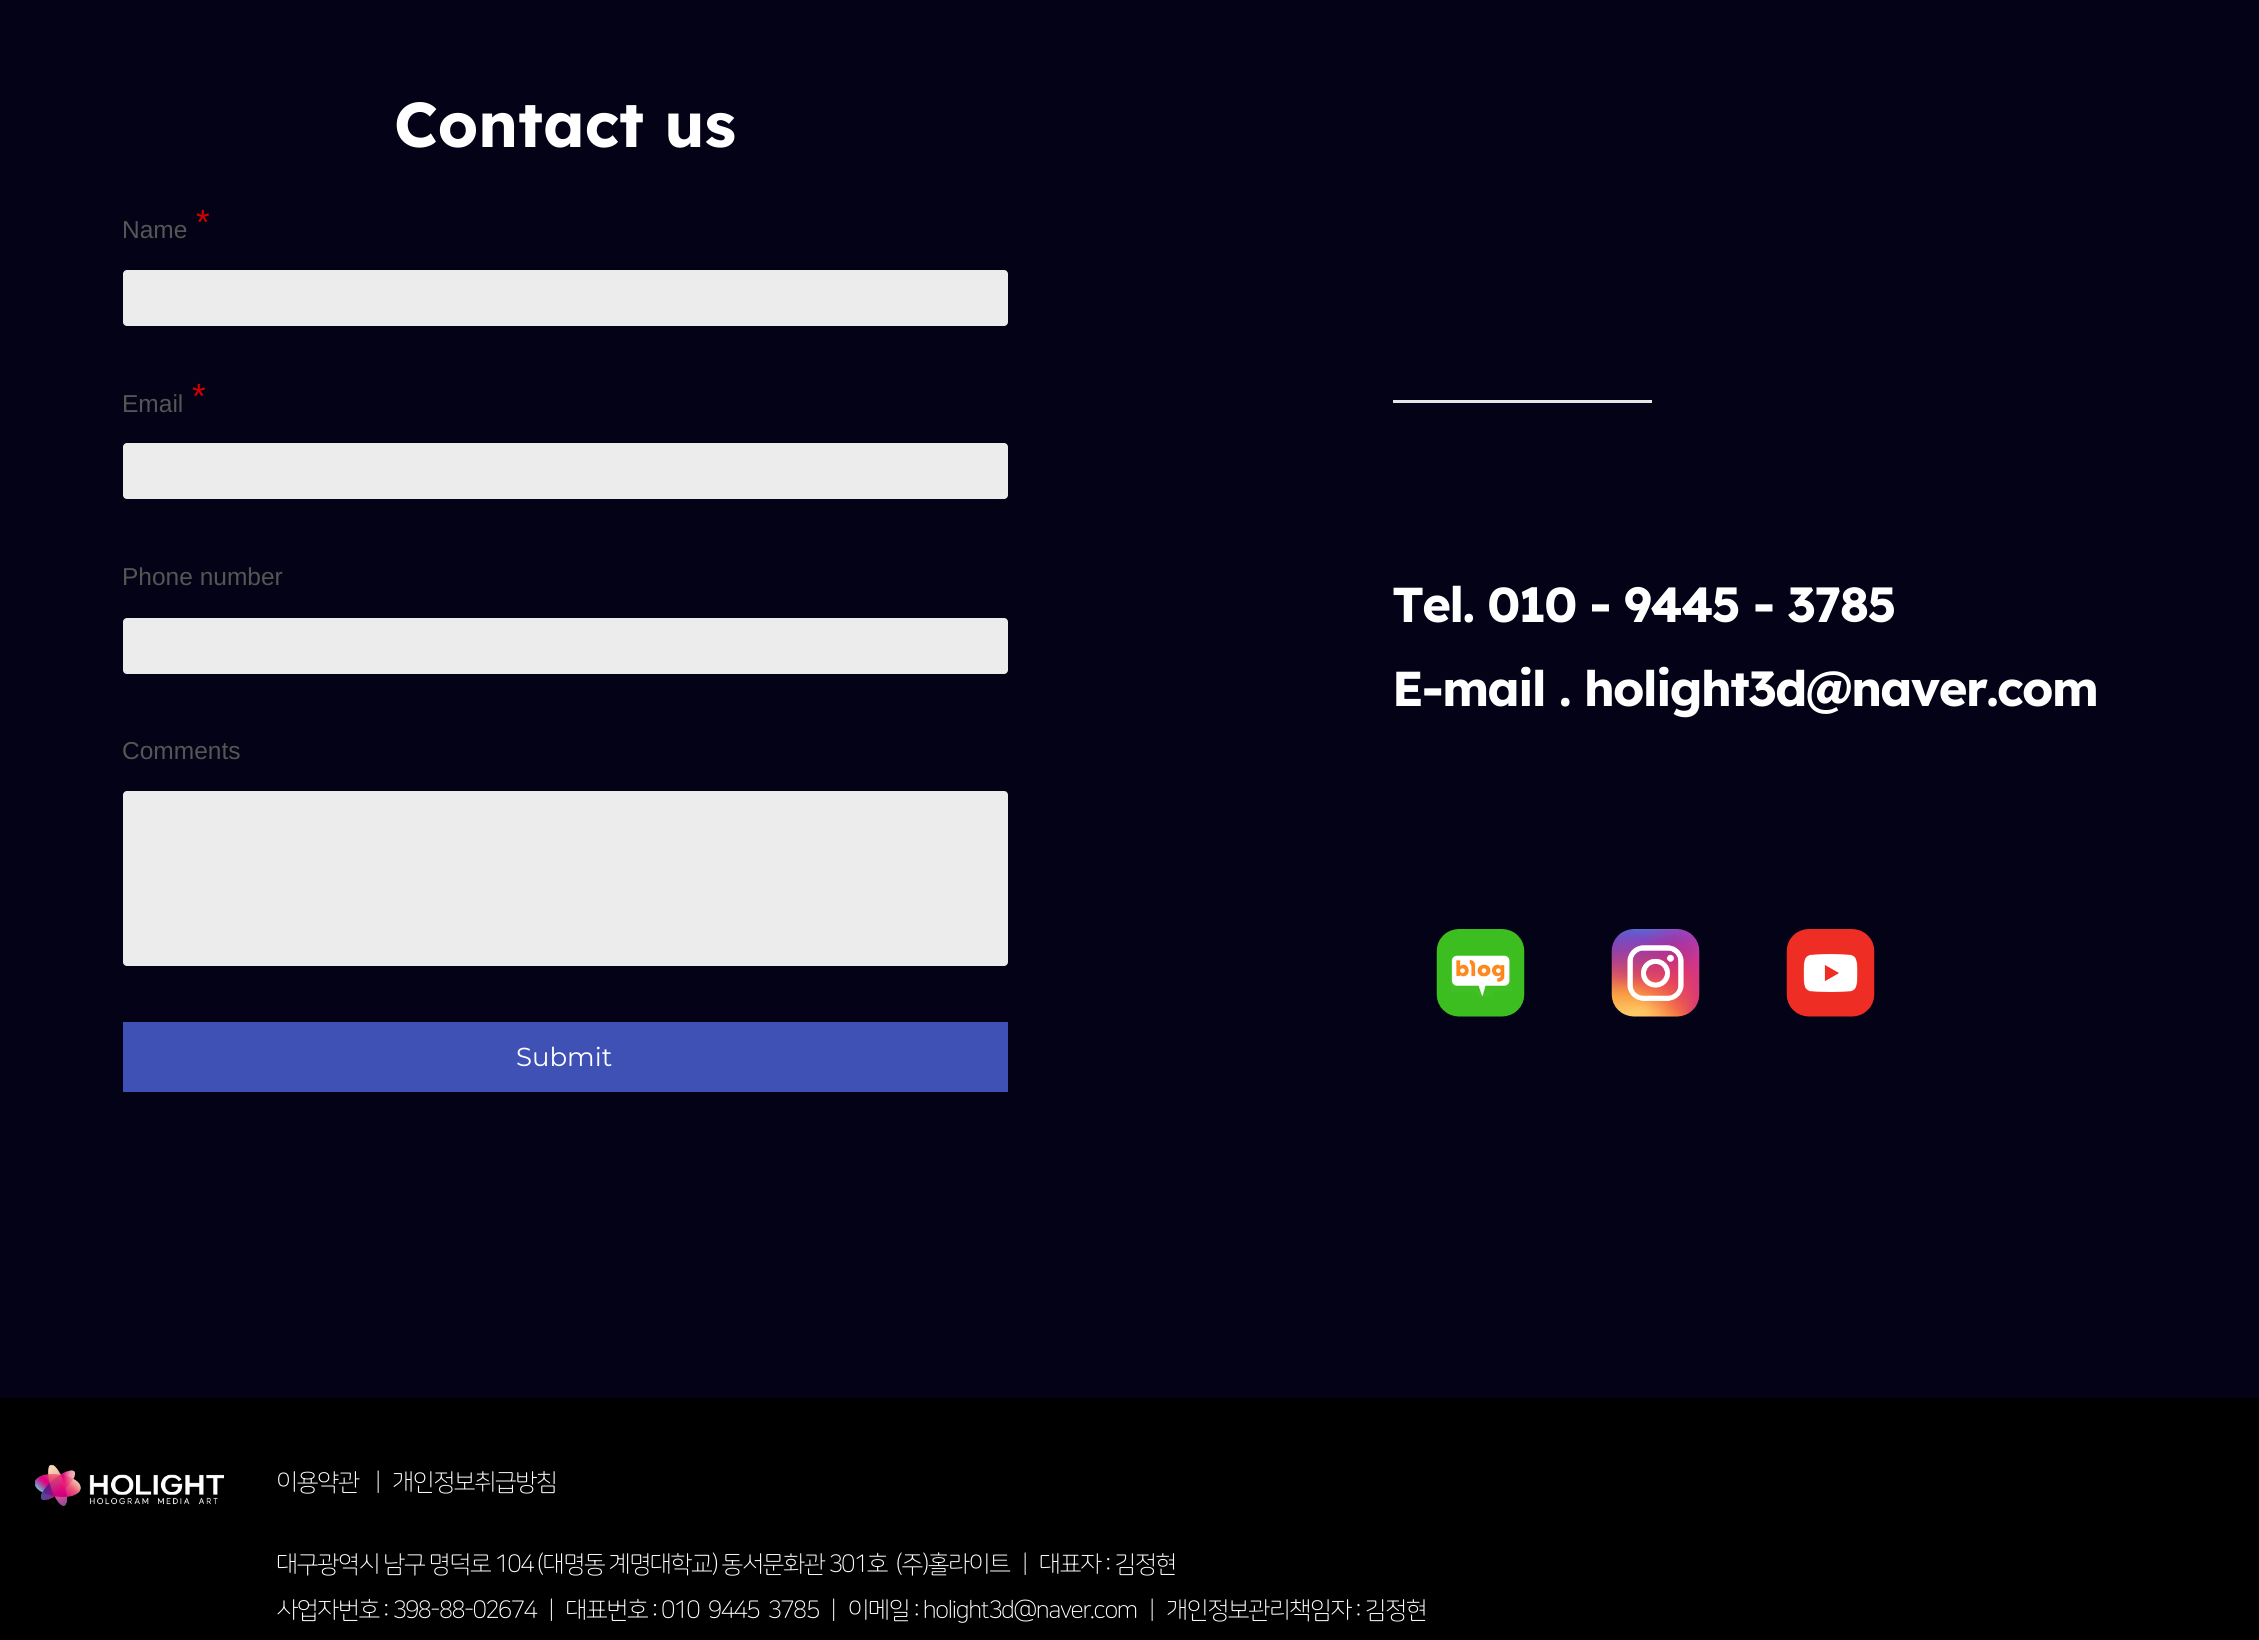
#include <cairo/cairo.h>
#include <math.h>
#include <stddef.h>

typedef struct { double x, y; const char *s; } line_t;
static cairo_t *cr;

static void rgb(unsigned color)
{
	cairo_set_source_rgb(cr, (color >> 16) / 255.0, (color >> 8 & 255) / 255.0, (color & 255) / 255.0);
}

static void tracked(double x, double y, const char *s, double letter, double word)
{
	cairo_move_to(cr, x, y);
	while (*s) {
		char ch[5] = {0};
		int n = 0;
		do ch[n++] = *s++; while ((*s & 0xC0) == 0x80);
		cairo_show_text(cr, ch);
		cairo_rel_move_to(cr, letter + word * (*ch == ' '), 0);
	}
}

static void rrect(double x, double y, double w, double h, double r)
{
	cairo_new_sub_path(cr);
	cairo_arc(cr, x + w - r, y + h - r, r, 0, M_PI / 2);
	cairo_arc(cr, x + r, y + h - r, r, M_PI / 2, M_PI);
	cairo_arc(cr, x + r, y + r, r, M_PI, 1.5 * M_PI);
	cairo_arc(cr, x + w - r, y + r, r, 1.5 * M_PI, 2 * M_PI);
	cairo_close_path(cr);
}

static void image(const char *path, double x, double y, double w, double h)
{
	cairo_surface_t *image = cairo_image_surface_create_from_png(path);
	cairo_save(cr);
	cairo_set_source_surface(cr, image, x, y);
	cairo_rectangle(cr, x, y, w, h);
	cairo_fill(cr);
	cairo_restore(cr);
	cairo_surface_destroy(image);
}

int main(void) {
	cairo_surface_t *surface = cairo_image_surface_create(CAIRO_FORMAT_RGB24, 2259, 1640);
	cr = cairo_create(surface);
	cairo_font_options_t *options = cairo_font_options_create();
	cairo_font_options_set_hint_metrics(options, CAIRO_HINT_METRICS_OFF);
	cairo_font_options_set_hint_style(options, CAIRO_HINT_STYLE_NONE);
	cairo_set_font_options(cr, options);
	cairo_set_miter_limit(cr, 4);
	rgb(0x030216);
	cairo_paint(cr);
	rgb(0xececec);
	rrect(123, 270, 885, 56, 4);
	cairo_fill(cr);
	rrect(123, 443, 885, 56, 4);
	cairo_fill(cr);
	rrect(123, 618, 885, 56, 4);
	cairo_fill(cr);
	rrect(123, 791, 885, 175, 4);
	cairo_fill(cr);
	rgb(0x3f51b5);
	cairo_rectangle(cr, 123, 1022, 885, 70);
	cairo_fill(cr);
	rgb(0xe7e7e7);
	cairo_rectangle(cr, 1393, 400, 259, 3);
	cairo_fill(cr);
	image("img/1.png", 1436, 929, 89, 88);
	image("img/2.png", 1611, 929, 89, 88);
	image("img/3.png", 1786, 929, 89, 88);
	rgb(0x000000);
	cairo_rectangle(cr, 0, 1398, 2259, 242);
	cairo_fill(cr);
	image("img/4.png", 35, 1464, 189, 43);
	cairo_select_font_face(cr, "Lexend Deca", CAIRO_FONT_SLANT_NORMAL, CAIRO_FONT_WEIGHT_BOLD);
	cairo_set_font_size(cr, 63);
	rgb(0xffffff);
	cairo_move_to(cr, 394, 147);
	cairo_show_text(cr, "Contact us");
	cairo_select_font_face(cr, "Liberation Sans", CAIRO_FONT_SLANT_NORMAL, CAIRO_FONT_WEIGHT_NORMAL);
	cairo_set_font_size(cr, 35);
	rgb(0xd20000);
	cairo_move_to(cr, 196, 234);
	cairo_show_text(cr, "*");
	cairo_set_font_size(cr, 24.5);
	rgb(0x555555);
	cairo_move_to(cr, 122, 238);
	cairo_show_text(cr, "Name");
	cairo_set_font_size(cr, 35);
	rgb(0xd20000);
	cairo_move_to(cr, 192, 408);
	cairo_show_text(cr, "*");
	cairo_set_font_size(cr, 24.5);
	rgb(0x555555);
	{
		static const line_t items[] = {
			{122, 412, "Email"},
			{122, 585, "Phone number"},
			{122, 759, "Comments"},
		};
		for (size_t i = 0; i < sizeof items / sizeof *items; i++) {
			cairo_move_to(cr, items[i].x, items[i].y);
			cairo_show_text(cr, items[i].s);
		}
	}
	cairo_select_font_face(cr, "Montserrat", CAIRO_FONT_SLANT_NORMAL, CAIRO_FONT_WEIGHT_NORMAL);
	cairo_set_font_size(cr, 26);
	rgb(0xffffff);
	cairo_move_to(cr, 516, 1066);
	cairo_show_text(cr, "Submit");
	cairo_select_font_face(cr, "Lexend Deca", CAIRO_FONT_SLANT_NORMAL, CAIRO_FONT_WEIGHT_BOLD);
	cairo_set_font_size(cr, 49);
	tracked(1392, 622, "Tel. 010 - 9445 - 3785", -1.75, 0);
	tracked(1392, 706, "E-mail . holight3d@naver.com", -1.75, 0);
	cairo_select_font_face(cr, "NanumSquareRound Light", CAIRO_FONT_SLANT_NORMAL, CAIRO_FONT_WEIGHT_NORMAL);
	cairo_set_font_size(cr, 24.5);
	{
		static const line_t items[] = {
			{276, 1490, "이용약관"},
			{367, 1490, "｜ 개인정보취급방침"},
			{276, 1572, "대구광역시 남구 명덕로 104 (대명동 계명대학교) 동서문화관 301호  (주)홀라이트 ｜ 대표자 : 김정현"},
			{276, 1618, "사업자번호 : 398-88-02674 ｜ 대표번호 : 010  9445  3785 ｜ 이메일 : holight3d@naver.com ｜ 개인정보관리책임자 : 김정현"},
		};
		for (size_t i = 0; i < sizeof items / sizeof *items; i++) {
			tracked(items[i].x, items[i].y, items[i].s, -1.75, 0);
		}
	}
	cairo_surface_write_to_png(surface, "page.png");
	cairo_font_options_destroy(options);
	cairo_destroy(cr);
	cairo_surface_destroy(surface);
	return 0;
}
